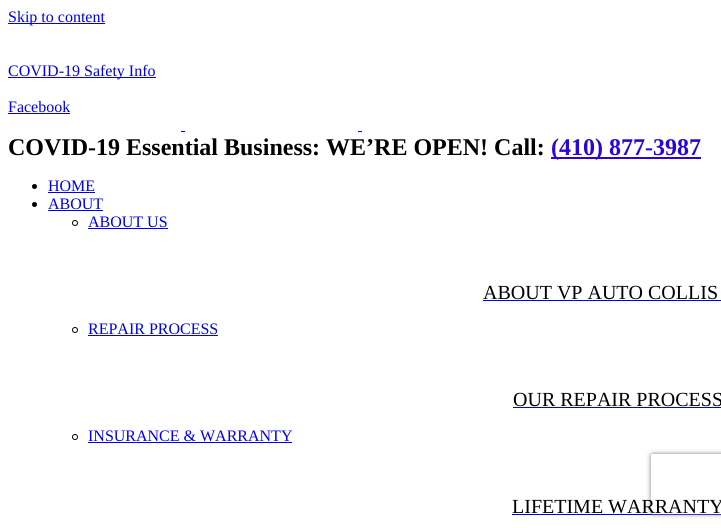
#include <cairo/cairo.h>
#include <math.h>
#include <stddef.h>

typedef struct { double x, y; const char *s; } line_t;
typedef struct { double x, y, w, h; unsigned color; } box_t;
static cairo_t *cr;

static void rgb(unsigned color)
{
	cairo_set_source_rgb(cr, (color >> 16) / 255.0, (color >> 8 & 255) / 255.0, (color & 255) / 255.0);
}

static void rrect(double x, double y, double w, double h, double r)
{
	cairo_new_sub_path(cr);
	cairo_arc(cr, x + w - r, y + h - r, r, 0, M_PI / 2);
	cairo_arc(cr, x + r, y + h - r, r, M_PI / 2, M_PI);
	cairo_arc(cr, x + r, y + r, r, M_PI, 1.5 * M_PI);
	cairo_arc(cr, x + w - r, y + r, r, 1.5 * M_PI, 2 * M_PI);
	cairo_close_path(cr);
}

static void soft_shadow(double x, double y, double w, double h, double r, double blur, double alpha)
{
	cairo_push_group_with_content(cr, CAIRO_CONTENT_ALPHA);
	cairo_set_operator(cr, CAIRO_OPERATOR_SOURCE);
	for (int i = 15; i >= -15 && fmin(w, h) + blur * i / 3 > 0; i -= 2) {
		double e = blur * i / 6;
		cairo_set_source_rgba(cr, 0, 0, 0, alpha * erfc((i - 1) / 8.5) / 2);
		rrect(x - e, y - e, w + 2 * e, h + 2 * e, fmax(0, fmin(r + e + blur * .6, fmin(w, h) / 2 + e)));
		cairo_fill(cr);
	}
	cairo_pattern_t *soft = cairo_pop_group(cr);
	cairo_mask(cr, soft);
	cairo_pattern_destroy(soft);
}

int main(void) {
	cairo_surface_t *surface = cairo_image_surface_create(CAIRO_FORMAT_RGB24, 721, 528);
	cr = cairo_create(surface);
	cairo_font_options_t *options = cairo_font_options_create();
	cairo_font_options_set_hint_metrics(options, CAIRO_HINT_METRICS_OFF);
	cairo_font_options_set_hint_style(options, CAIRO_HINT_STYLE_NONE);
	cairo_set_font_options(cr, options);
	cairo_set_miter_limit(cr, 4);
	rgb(0xffffff);
	cairo_paint(cr);
	{
		static const box_t items[] = {
			{8, 23, 97, 1, 0x0000ee},
			{8, 77, 148, 1, 0x0000ee},
			{8, 113, 62, 1, 0x0000ee},
			{181, 131, 4, 1, 0x0000ee},
			{358, 131, 4, 1, 0x0000ee},
			{551, 157, 150, 2, 0x2905dc},
		};
		for (size_t i = 0; i < sizeof items / sizeof *items; i++) {
			rgb(items[i].color);
			cairo_rectangle(cr, items[i].x, items[i].y, items[i].w, items[i].h);
			cairo_fill(cr);
		}
	}
	rgb(0x000000);
	cairo_arc(cr, 34.5, 186.5, 2.5, 0, 2 * M_PI);
	cairo_fill(cr);
	rgb(0x0000ee);
	cairo_rectangle(cr, 48, 192, 47, 1);
	cairo_fill(cr);
	rgb(0x000000);
	cairo_arc(cr, 34.5, 204.5, 2.5, 0, 2 * M_PI);
	cairo_fill(cr);
	rgb(0x0000ee);
	cairo_rectangle(cr, 48, 210, 55, 1);
	cairo_fill(cr);
	cairo_arc(cr, 75, 223, 2.5, 0, 2 * M_PI);
	rgb(0x000000);
	cairo_set_line_width(cr, 1);
	cairo_stroke(cr);
	rgb(0x0000ee);
	cairo_rectangle(cr, 88, 228, 80, 1);
	cairo_fill(cr);
	cairo_rectangle(cr, 483, 300, 238, 1);
	cairo_fill(cr);
	cairo_arc(cr, 75, 330, 2.5, 0, 2 * M_PI);
	rgb(0x000000);
	cairo_stroke(cr);
	rgb(0x0000ee);
	cairo_rectangle(cr, 88, 335, 130, 1);
	cairo_fill(cr);
	cairo_rectangle(cr, 513, 407, 208, 1);
	cairo_fill(cr);
	cairo_arc(cr, 75, 437, 2.5, 0, 2 * M_PI);
	rgb(0x000000);
	cairo_stroke(cr);
	rgb(0x0000ee);
	cairo_rectangle(cr, 88, 442, 204, 1);
	cairo_fill(cr);
	cairo_rectangle(cr, 512, 514, 209, 1);
	cairo_fill(cr);
	cairo_save(cr);
	cairo_set_fill_rule(cr, CAIRO_FILL_RULE_EVEN_ODD);
	cairo_new_path(cr);
	cairo_move_to(cr, 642, 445);
	cairo_line_to(cr, 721, 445);
	cairo_line_to(cr, 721, 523);
	cairo_line_to(cr, 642, 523);
	cairo_close_path(cr);
	cairo_move_to(cr, 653, 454);
	cairo_line_to(cr, 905, 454);
	cairo_curve_to(cr, 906, 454, 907, 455, 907, 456);
	cairo_line_to(cr, 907, 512);
	cairo_curve_to(cr, 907, 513, 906, 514, 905, 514);
	cairo_line_to(cr, 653, 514);
	cairo_curve_to(cr, 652, 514, 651, 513, 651, 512);
	cairo_line_to(cr, 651, 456);
	cairo_curve_to(cr, 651, 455, 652, 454, 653, 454);
	cairo_close_path(cr);
	cairo_clip(cr);
	rgb(0x808080);
	soft_shadow(651, 454, 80, 60, 2, 2.5, 1);
	cairo_restore(cr);
	cairo_select_font_face(cr, "Liberation Serif", CAIRO_FONT_SLANT_NORMAL, CAIRO_FONT_WEIGHT_NORMAL);
	cairo_set_font_size(cr, 16);
	{
		static const line_t items[] = {
			{8, 22, "Skip to content"},
			{8, 76, "COVID-19 Safety Info"},
			{8, 112, "Facebook"},
		};
		for (size_t i = 0; i < sizeof items / sizeof *items; i++) {
			cairo_move_to(cr, items[i].x, items[i].y);
			cairo_show_text(cr, items[i].s);
		}
	}
	cairo_select_font_face(cr, "Liberation Serif", CAIRO_FONT_SLANT_NORMAL, CAIRO_FONT_WEIGHT_BOLD);
	cairo_set_font_size(cr, 24);
	rgb(0x000000);
	cairo_move_to(cr, 8, 155);
	cairo_show_text(cr, "COVID-19 Essential Business: WE’RE OPEN! Call:");
	rgb(0x2905dc);
	cairo_move_to(cr, 551, 155);
	cairo_show_text(cr, "(410) 877-3987");
	cairo_select_font_face(cr, "Liberation Serif", CAIRO_FONT_SLANT_NORMAL, CAIRO_FONT_WEIGHT_NORMAL);
	cairo_set_font_size(cr, 16);
	rgb(0x0000ee);
	{
		static const line_t items[] = {
			{48, 191, "HOME"},
			{48, 209, "ABOUT"},
			{88, 227, "ABOUT US"},
		};
		for (size_t i = 0; i < sizeof items / sizeof *items; i++) {
			cairo_move_to(cr, items[i].x, items[i].y);
			cairo_show_text(cr, items[i].s);
		}
	}
	cairo_set_font_size(cr, 20);
	rgb(0x000000);
	cairo_move_to(cr, 483, 299);
	cairo_show_text(cr, "ABOUT VP AUTO COLLIS");
	cairo_set_font_size(cr, 16);
	rgb(0x0000ee);
	cairo_move_to(cr, 88, 334);
	cairo_show_text(cr, "REPAIR PROCESS");
	cairo_set_font_size(cr, 20);
	rgb(0x000000);
	cairo_move_to(cr, 513, 406);
	cairo_show_text(cr, "OUR REPAIR PROCESS");
	cairo_set_font_size(cr, 16);
	rgb(0x0000ee);
	cairo_move_to(cr, 88, 441);
	cairo_show_text(cr, "INSURANCE & WARRANTY");
	cairo_set_font_size(cr, 20);
	rgb(0x000000);
	cairo_move_to(cr, 512, 513);
	cairo_show_text(cr, "LIFETIME WARRANTY");
	cairo_surface_write_to_png(surface, "page.png");
	cairo_font_options_destroy(options);
	cairo_destroy(cr);
	cairo_surface_destroy(surface);
	return 0;
}
